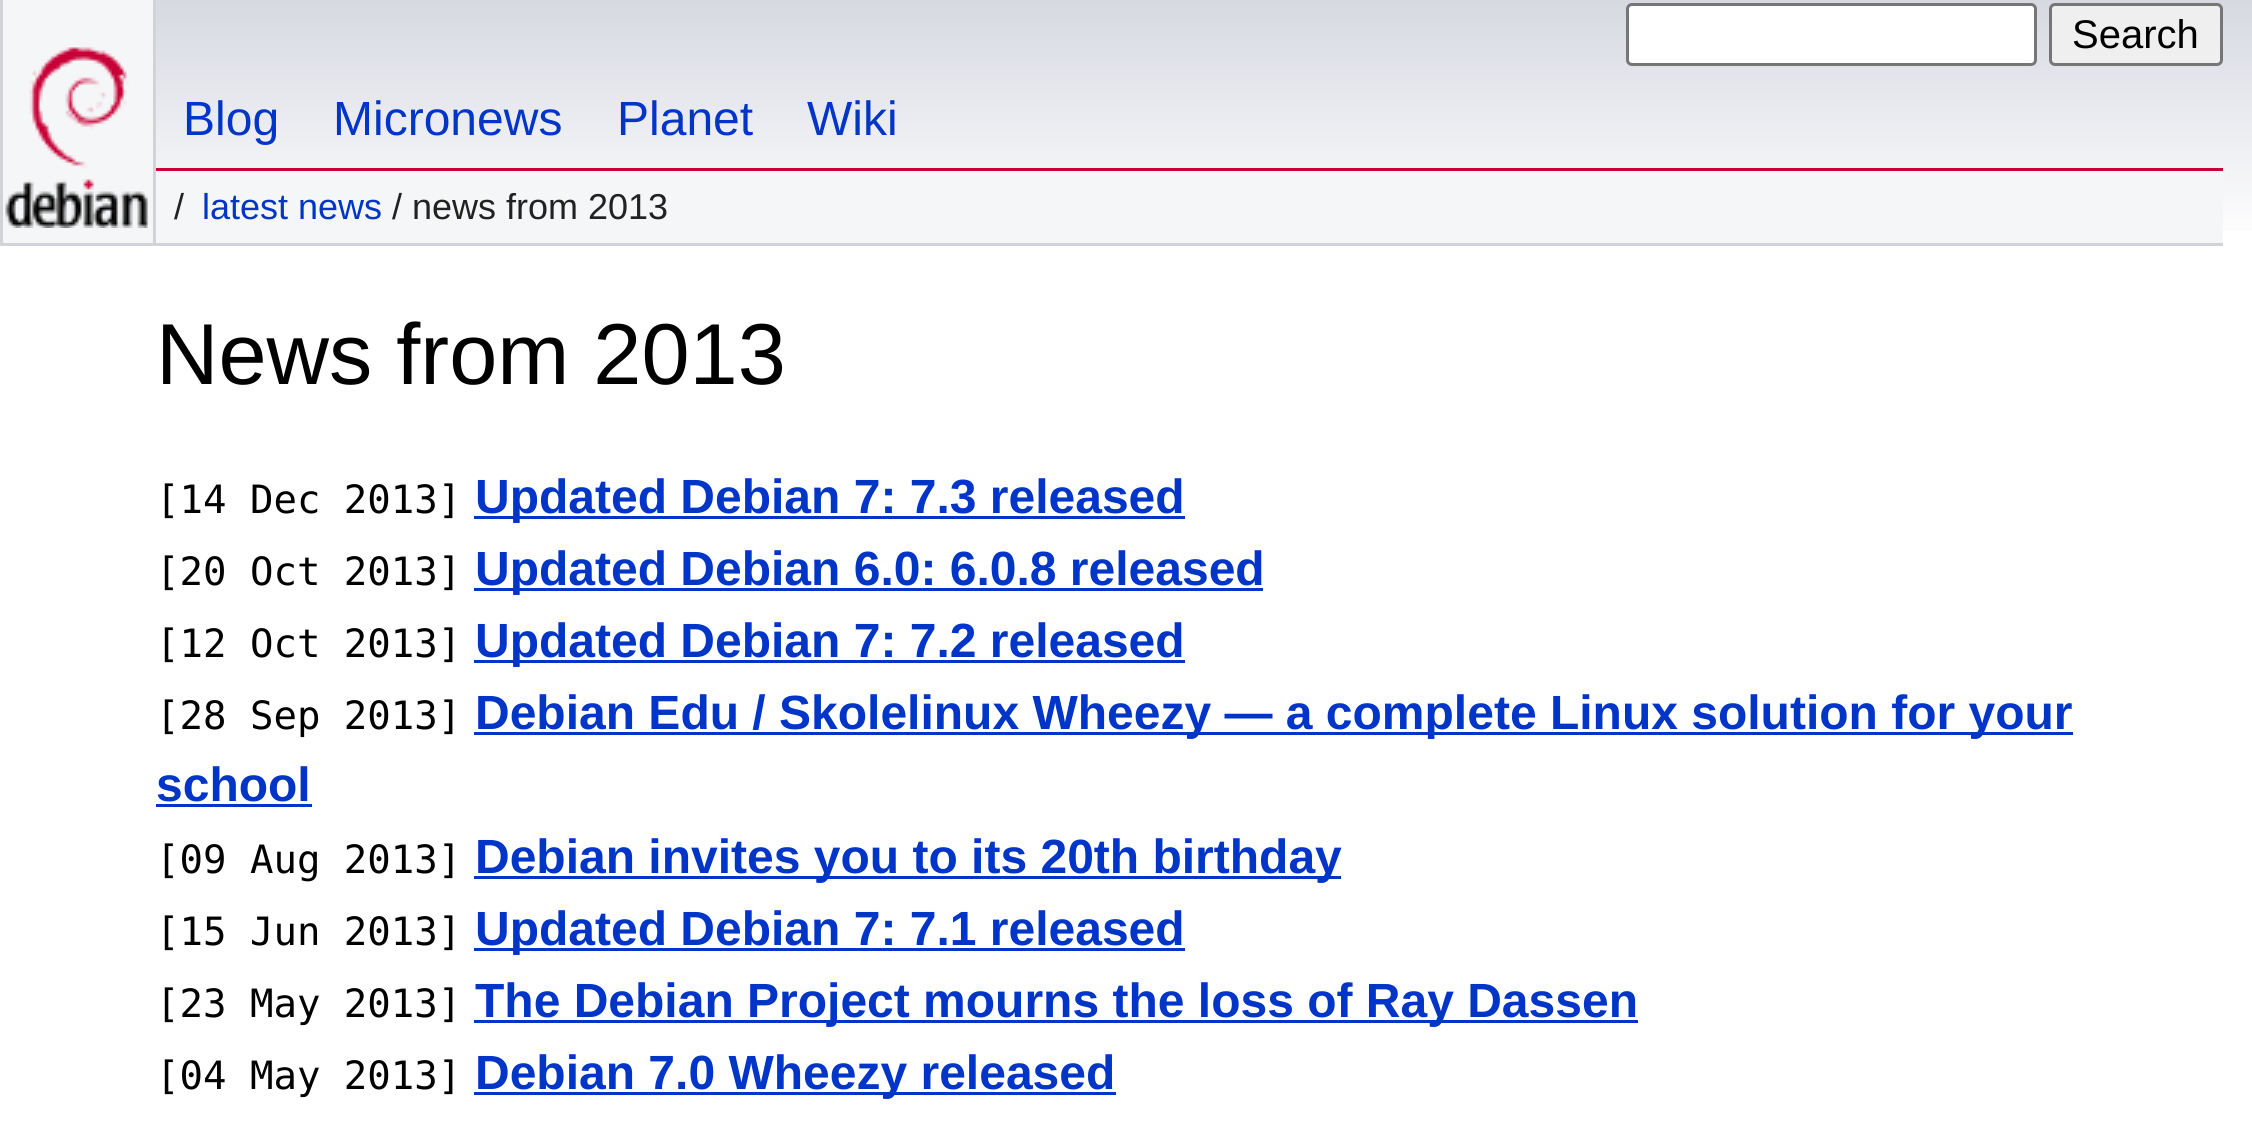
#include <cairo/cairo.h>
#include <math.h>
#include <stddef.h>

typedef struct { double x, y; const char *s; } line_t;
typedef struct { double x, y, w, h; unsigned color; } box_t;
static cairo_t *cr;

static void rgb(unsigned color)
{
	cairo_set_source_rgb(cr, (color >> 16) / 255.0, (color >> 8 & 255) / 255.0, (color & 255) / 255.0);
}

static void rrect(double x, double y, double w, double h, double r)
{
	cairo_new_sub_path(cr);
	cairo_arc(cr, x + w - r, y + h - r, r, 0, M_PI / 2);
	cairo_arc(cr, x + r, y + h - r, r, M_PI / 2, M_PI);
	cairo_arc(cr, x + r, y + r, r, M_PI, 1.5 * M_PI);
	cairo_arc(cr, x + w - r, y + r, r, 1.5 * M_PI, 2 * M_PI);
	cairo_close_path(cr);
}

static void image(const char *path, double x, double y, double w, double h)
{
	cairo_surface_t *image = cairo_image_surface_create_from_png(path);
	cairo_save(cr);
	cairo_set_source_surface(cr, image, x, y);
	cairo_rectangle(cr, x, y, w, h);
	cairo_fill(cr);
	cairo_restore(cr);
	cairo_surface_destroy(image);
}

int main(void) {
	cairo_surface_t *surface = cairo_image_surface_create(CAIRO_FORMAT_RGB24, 2252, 1126);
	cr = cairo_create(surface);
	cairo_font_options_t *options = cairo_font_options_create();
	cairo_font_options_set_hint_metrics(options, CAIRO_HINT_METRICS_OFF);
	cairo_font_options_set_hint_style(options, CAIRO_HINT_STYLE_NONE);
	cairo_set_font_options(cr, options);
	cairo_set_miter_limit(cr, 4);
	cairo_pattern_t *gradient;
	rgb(0xffffff);
	cairo_paint(cr);
	gradient = cairo_pattern_create_linear(1127, 0, 1127, 246);
	cairo_pattern_add_color_stop_rgba(gradient, 0, 0.843, 0.851, 0.886, 1);
	cairo_pattern_add_color_stop_rgba(gradient, 1, 1, 1, 1, 1);
	cairo_set_source(cr, gradient);
	cairo_pattern_destroy(gradient);
	cairo_rectangle(cr, 156, 0, 2096, 231);
	cairo_fill(cr);
	{
		static const box_t items[] = {
			{3, 0, 150, 243, 0xf5f6f7},
			{153, 0, 3, 246, 0xd2d3d7},
			{0, 243, 156, 3, 0xd2d3d7},
			{0, 0, 3, 246, 0xd2d3d7},
		};
		for (size_t i = 0; i < sizeof items / sizeof *items; i++) {
			rgb(items[i].color);
			cairo_rectangle(cr, items[i].x, items[i].y, items[i].w, items[i].h);
			cairo_fill(cr);
		}
	}
	image("img/1.png", 5, 47, 143, 181);
	rgb(0xffffff);
	rrect(1627.5, 4.5, 408, 60, 4.5);
	cairo_fill_preserve(cr);
	rgb(0x767676);
	cairo_set_line_width(cr, 3);
	cairo_stroke(cr);
	rgb(0xefefef);
	rrect(2050.5, 4.5, 171, 60, 4.5);
	cairo_fill_preserve(cr);
	rgb(0x767676);
	cairo_stroke(cr);
	{
		static const box_t items[] = {
			{156, 168, 2067, 3, 0xc70036},
			{156, 171, 2067, 72, 0xf5f6f7},
			{156, 243, 2067, 3, 0xd2d3d7},
			{474, 516, 711, 3, 0x0035c7},
			{474, 588, 789, 3, 0x0035c7},
			{474, 660, 711, 3, 0x0035c7},
			{474, 732, 1599, 3, 0x0035c7},
			{156, 804, 156, 3, 0x0035c7},
			{474, 876, 867, 3, 0x0035c7},
			{474, 948, 711, 3, 0x0035c7},
			{474, 1020, 1164, 3, 0x0035c7},
			{474, 1092, 432, 3, 0x0035c7},
			{906, 1092, 210, 3, 0x0035c7},
		};
		for (size_t i = 0; i < sizeof items / sizeof *items; i++) {
			rgb(items[i].color);
			cairo_rectangle(cr, items[i].x, items[i].y, items[i].w, items[i].h);
			cairo_fill(cr);
		}
	}
	cairo_select_font_face(cr, "Liberation Sans", CAIRO_FONT_SLANT_NORMAL, CAIRO_FONT_WEIGHT_NORMAL);
	cairo_set_font_size(cr, 40);
	rgb(0x000000);
	cairo_move_to(cr, 2072, 48);
	cairo_show_text(cr, "Search");
	cairo_set_font_size(cr, 48);
	rgb(0x0035c7);
	{
		static const line_t items[] = {
			{183, 135, "Blog"},
			{333, 135, "Micronews"},
			{617, 135, "Planet"},
			{807, 135, "Wiki"},
		};
		for (size_t i = 0; i < sizeof items / sizeof *items; i++) {
			cairo_move_to(cr, items[i].x, items[i].y);
			cairo_show_text(cr, items[i].s);
		}
	}
	cairo_set_font_size(cr, 36);
	rgb(0x222222);
	cairo_move_to(cr, 174, 219);
	cairo_show_text(cr, "/");
	rgb(0x0035c7);
	cairo_move_to(cr, 202, 219);
	cairo_show_text(cr, "latest news");
	rgb(0x222222);
	cairo_move_to(cr, 392, 219);
	cairo_show_text(cr, "/ news from 2013");
	cairo_set_font_size(cr, 86.5);
	rgb(0x000000);
	cairo_move_to(cr, 156, 384);
	cairo_show_text(cr, "News from 2013");
	cairo_select_font_face(cr, "DejaVu Sans Mono", CAIRO_FONT_SLANT_NORMAL, CAIRO_FONT_WEIGHT_NORMAL);
	cairo_set_font_size(cr, 39);
	cairo_move_to(cr, 156, 513);
	cairo_show_text(cr, "[14 Dec 2013]");
	cairo_select_font_face(cr, "Liberation Sans", CAIRO_FONT_SLANT_NORMAL, CAIRO_FONT_WEIGHT_BOLD);
	cairo_set_font_size(cr, 48);
	rgb(0x0035c7);
	cairo_move_to(cr, 475, 513);
	cairo_show_text(cr, "Updated Debian 7: 7.3 released");
	cairo_select_font_face(cr, "DejaVu Sans Mono", CAIRO_FONT_SLANT_NORMAL, CAIRO_FONT_WEIGHT_NORMAL);
	cairo_set_font_size(cr, 39);
	rgb(0x000000);
	cairo_move_to(cr, 156, 585);
	cairo_show_text(cr, "[20 Oct 2013]");
	cairo_select_font_face(cr, "Liberation Sans", CAIRO_FONT_SLANT_NORMAL, CAIRO_FONT_WEIGHT_BOLD);
	cairo_set_font_size(cr, 48);
	rgb(0x0035c7);
	cairo_move_to(cr, 475, 585);
	cairo_show_text(cr, "Updated Debian 6.0: 6.0.8 released");
	cairo_select_font_face(cr, "DejaVu Sans Mono", CAIRO_FONT_SLANT_NORMAL, CAIRO_FONT_WEIGHT_NORMAL);
	cairo_set_font_size(cr, 39);
	rgb(0x000000);
	cairo_move_to(cr, 156, 657);
	cairo_show_text(cr, "[12 Oct 2013]");
	cairo_select_font_face(cr, "Liberation Sans", CAIRO_FONT_SLANT_NORMAL, CAIRO_FONT_WEIGHT_BOLD);
	cairo_set_font_size(cr, 48);
	rgb(0x0035c7);
	cairo_move_to(cr, 475, 657);
	cairo_show_text(cr, "Updated Debian 7: 7.2 released");
	cairo_select_font_face(cr, "DejaVu Sans Mono", CAIRO_FONT_SLANT_NORMAL, CAIRO_FONT_WEIGHT_NORMAL);
	cairo_set_font_size(cr, 39);
	rgb(0x000000);
	cairo_move_to(cr, 156, 729);
	cairo_show_text(cr, "[28 Sep 2013]");
	cairo_select_font_face(cr, "Liberation Sans", CAIRO_FONT_SLANT_NORMAL, CAIRO_FONT_WEIGHT_BOLD);
	cairo_set_font_size(cr, 48);
	rgb(0x0035c7);
	cairo_move_to(cr, 475, 729);
	cairo_show_text(cr, "Debian Edu / Skolelinux Wheezy — a complete Linux solution for your");
	cairo_move_to(cr, 156, 801);
	cairo_show_text(cr, "school");
	cairo_select_font_face(cr, "DejaVu Sans Mono", CAIRO_FONT_SLANT_NORMAL, CAIRO_FONT_WEIGHT_NORMAL);
	cairo_set_font_size(cr, 39);
	rgb(0x000000);
	cairo_move_to(cr, 156, 873);
	cairo_show_text(cr, "[09 Aug 2013]");
	cairo_select_font_face(cr, "Liberation Sans", CAIRO_FONT_SLANT_NORMAL, CAIRO_FONT_WEIGHT_BOLD);
	cairo_set_font_size(cr, 48);
	rgb(0x0035c7);
	cairo_move_to(cr, 475, 873);
	cairo_show_text(cr, "Debian invites you to its 20th birthday");
	cairo_select_font_face(cr, "DejaVu Sans Mono", CAIRO_FONT_SLANT_NORMAL, CAIRO_FONT_WEIGHT_NORMAL);
	cairo_set_font_size(cr, 39);
	rgb(0x000000);
	cairo_move_to(cr, 156, 945);
	cairo_show_text(cr, "[15 Jun 2013]");
	cairo_select_font_face(cr, "Liberation Sans", CAIRO_FONT_SLANT_NORMAL, CAIRO_FONT_WEIGHT_BOLD);
	cairo_set_font_size(cr, 48);
	rgb(0x0035c7);
	cairo_move_to(cr, 475, 945);
	cairo_show_text(cr, "Updated Debian 7: 7.1 released");
	cairo_select_font_face(cr, "DejaVu Sans Mono", CAIRO_FONT_SLANT_NORMAL, CAIRO_FONT_WEIGHT_NORMAL);
	cairo_set_font_size(cr, 39);
	rgb(0x000000);
	cairo_move_to(cr, 156, 1017);
	cairo_show_text(cr, "[23 May 2013]");
	cairo_select_font_face(cr, "Liberation Sans", CAIRO_FONT_SLANT_NORMAL, CAIRO_FONT_WEIGHT_BOLD);
	cairo_set_font_size(cr, 48);
	rgb(0x0035c7);
	cairo_move_to(cr, 475, 1017);
	cairo_show_text(cr, "The Debian Project mourns the loss of Ray Dassen");
	cairo_select_font_face(cr, "DejaVu Sans Mono", CAIRO_FONT_SLANT_NORMAL, CAIRO_FONT_WEIGHT_NORMAL);
	cairo_set_font_size(cr, 39);
	rgb(0x000000);
	cairo_move_to(cr, 156, 1089);
	cairo_show_text(cr, "[04 May 2013]");
	cairo_select_font_face(cr, "Liberation Sans", CAIRO_FONT_SLANT_NORMAL, CAIRO_FONT_WEIGHT_BOLD);
	cairo_set_font_size(cr, 48);
	rgb(0x0035c7);
	cairo_move_to(cr, 475, 1089);
	cairo_show_text(cr, "Debian 7.0 Wheezy released");
	cairo_surface_write_to_png(surface, "page.png");
	cairo_font_options_destroy(options);
	cairo_destroy(cr);
	cairo_surface_destroy(surface);
	return 0;
}
